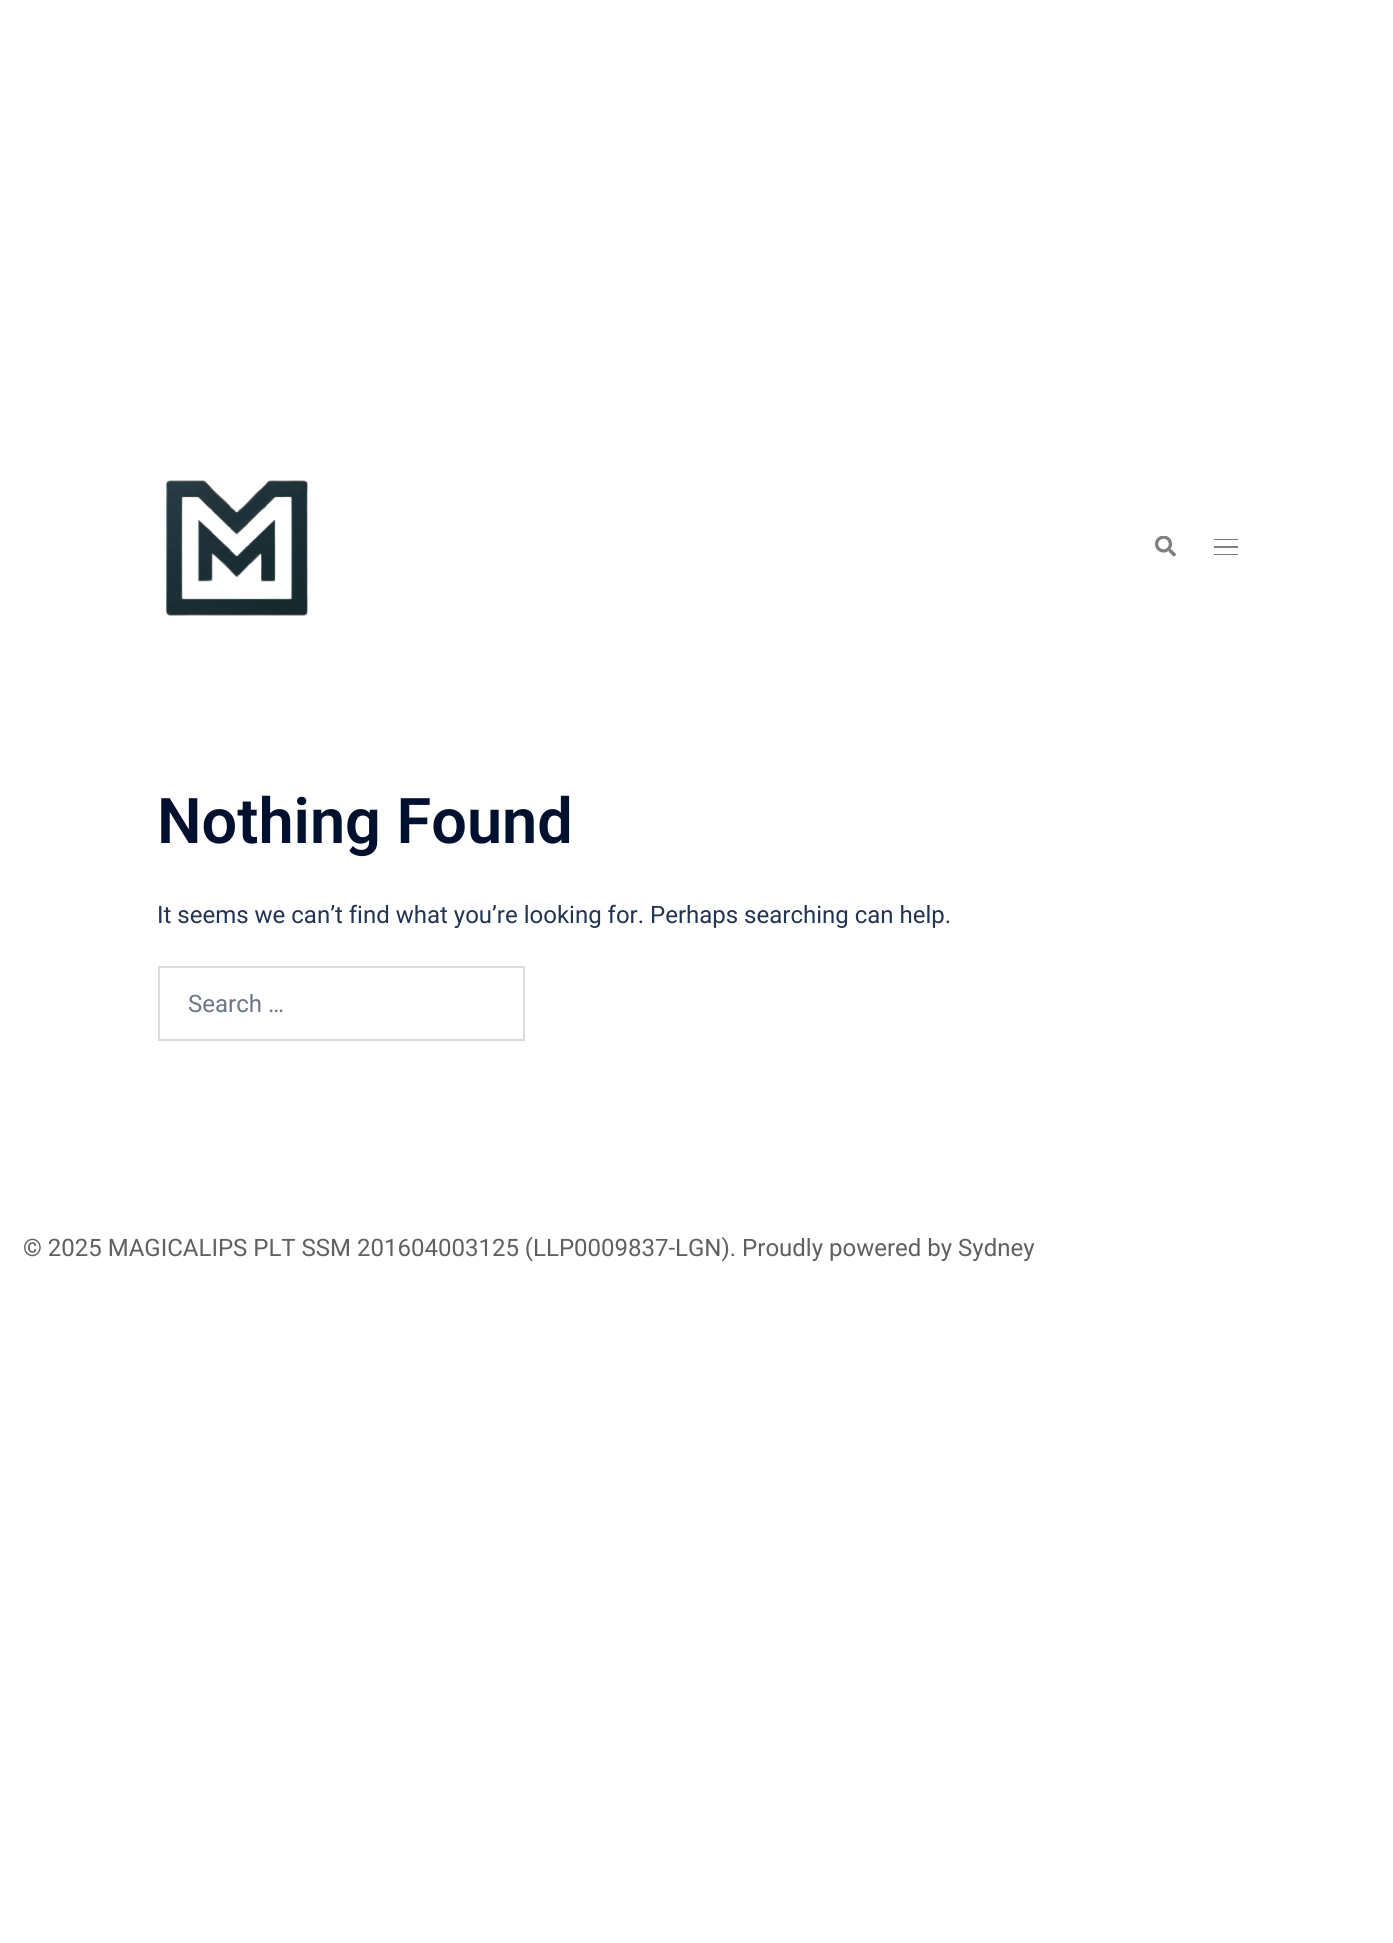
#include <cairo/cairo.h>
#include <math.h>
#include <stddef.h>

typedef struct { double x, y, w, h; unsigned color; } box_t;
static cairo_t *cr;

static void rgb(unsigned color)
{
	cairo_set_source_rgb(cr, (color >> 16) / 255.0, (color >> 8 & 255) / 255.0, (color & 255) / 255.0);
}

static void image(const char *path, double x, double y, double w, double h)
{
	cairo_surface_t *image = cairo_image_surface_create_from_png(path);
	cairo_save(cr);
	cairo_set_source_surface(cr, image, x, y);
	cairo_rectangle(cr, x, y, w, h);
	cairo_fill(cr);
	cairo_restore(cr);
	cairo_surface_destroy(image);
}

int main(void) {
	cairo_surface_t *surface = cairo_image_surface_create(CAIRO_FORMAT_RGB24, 1393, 1943);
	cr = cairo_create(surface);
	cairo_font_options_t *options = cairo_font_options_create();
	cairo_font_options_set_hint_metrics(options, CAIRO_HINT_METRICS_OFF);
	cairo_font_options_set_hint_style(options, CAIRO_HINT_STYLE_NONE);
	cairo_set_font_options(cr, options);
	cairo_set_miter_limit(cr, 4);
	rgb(0xffffff);
	cairo_paint(cr);
	image("img/1.png", 166, 480, 142, 136);
	image("img/2.png", 1155, 536, 21, 21);
	{
		static const box_t items[] = {
			{1214, 539, 24, 1, 0x827e7e},
			{1214, 546, 24, 2, 0x827e7e},
			{1214, 554, 24, 1, 0x827e7e},
		};
		for (size_t i = 0; i < sizeof items / sizeof *items; i++) {
			rgb(items[i].color);
			cairo_rectangle(cr, items[i].x, items[i].y, items[i].w, items[i].h);
			cairo_fill(cr);
		}
	}
	cairo_rectangle(cr, 159, 967, 365, 73);
	rgb(0xdbdbdb);
	cairo_stroke(cr);
	cairo_select_font_face(cr, "Roboto SemiBold", CAIRO_FONT_SLANT_NORMAL, CAIRO_FONT_WEIGHT_NORMAL);
	cairo_set_font_size(cr, 63);
	rgb(0x00102e);
	cairo_move_to(cr, 157, 843);
	cairo_show_text(cr, "Nothing Found");
	cairo_select_font_face(cr, "Roboto", CAIRO_FONT_SLANT_NORMAL, CAIRO_FONT_WEIGHT_NORMAL);
	cairo_set_font_size(cr, 24);
	rgb(0x233452);
	cairo_move_to(cr, 157, 923);
	cairo_show_text(cr, "It seems we can’t find what you’re looking for. Perhaps searching can help.");
	rgb(0x6d7685);
	cairo_move_to(cr, 188, 1012);
	cairo_show_text(cr, "Search …");
	rgb(0x615f5f);
	cairo_move_to(cr, 23, 1256);
	cairo_show_text(cr, "© 2025 MAGICALIPS PLT SSM 201604003125 (LLP0009837-LGN). Proudly powered by Sydney");
	cairo_surface_write_to_png(surface, "page.png");
	cairo_font_options_destroy(options);
	cairo_destroy(cr);
	cairo_surface_destroy(surface);
	return 0;
}
